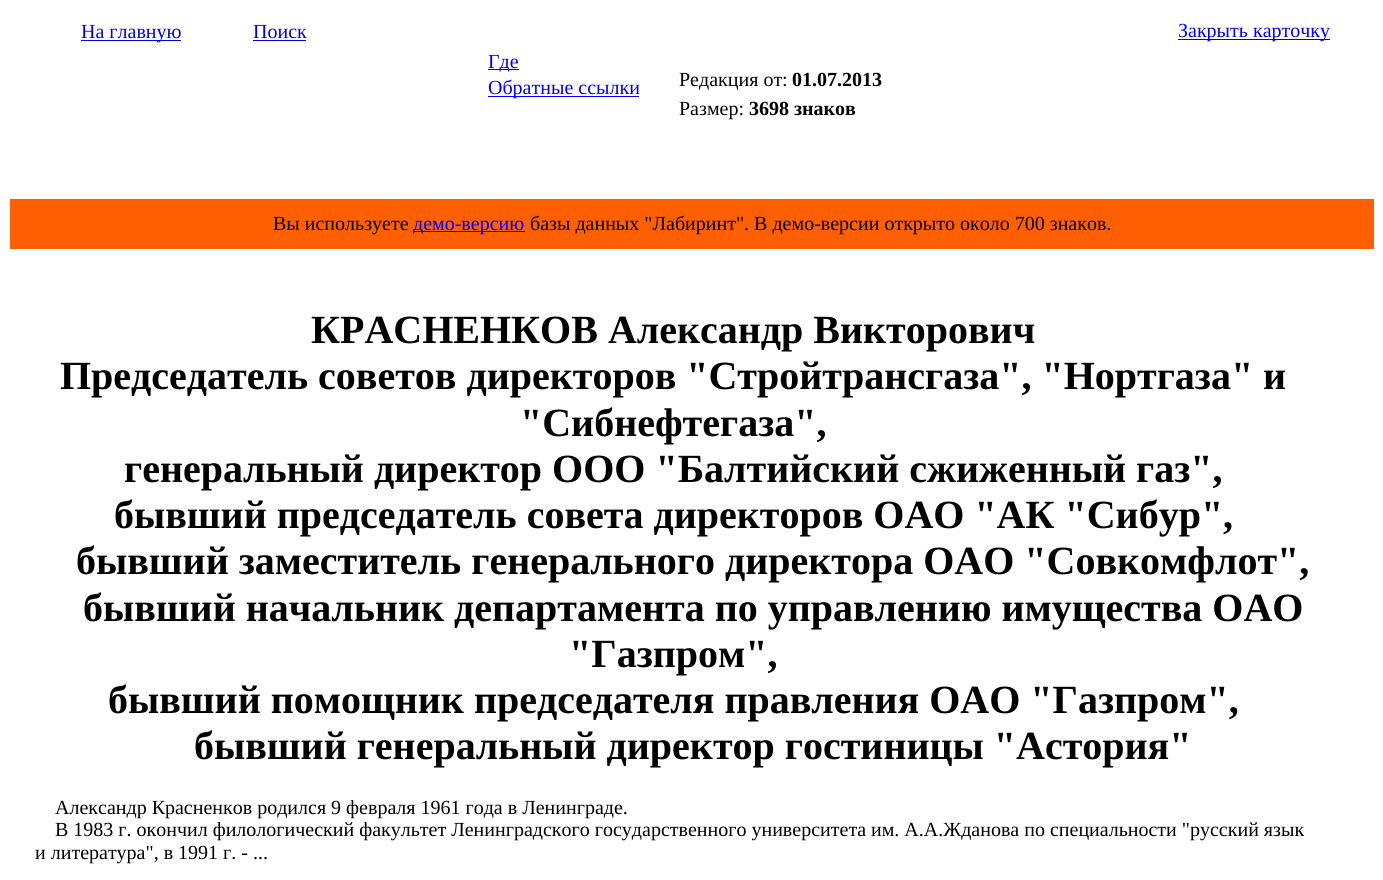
#include <cairo/cairo.h>
#include <math.h>
#include <stddef.h>

typedef struct { double x, y; const char *s; } line_t;
typedef struct { double x, y, w, h; unsigned color; } box_t;
static cairo_t *cr;

static void rgb(unsigned color)
{
	cairo_set_source_rgb(cr, (color >> 16) / 255.0, (color >> 8 & 255) / 255.0, (color & 255) / 255.0);
}

int main(void) {
	cairo_surface_t *surface = cairo_image_surface_create(CAIRO_FORMAT_RGB24, 1383, 880);
	cr = cairo_create(surface);
	cairo_font_options_t *options = cairo_font_options_create();
	cairo_font_options_set_hint_metrics(options, CAIRO_HINT_METRICS_OFF);
	cairo_font_options_set_hint_style(options, CAIRO_HINT_STYLE_NONE);
	cairo_set_font_options(cr, options);
	cairo_set_miter_limit(cr, 4);
	rgb(0xffffff);
	cairo_paint(cr);
	{
		static const box_t items[] = {
			{81, 40, 100, 1, 0x0000ee},
			{253, 40, 53, 1, 0x0000ee},
			{1178, 39, 152, 1, 0x0000ee},
			{488, 69, 31, 1, 0x0000ee},
			{488, 96, 151, 1, 0x0000ee},
			{10, 199, 1364, 50, 0xff5f03},
			{414, 231, 111, 1, 0x0000ee},
		};
		for (size_t i = 0; i < sizeof items / sizeof *items; i++) {
			rgb(items[i].color);
			cairo_rectangle(cr, items[i].x, items[i].y, items[i].w, items[i].h);
			cairo_fill(cr);
		}
	}
	cairo_select_font_face(cr, "Liberation Serif", CAIRO_FONT_SLANT_NORMAL, CAIRO_FONT_WEIGHT_NORMAL);
	cairo_set_font_size(cr, 20);
	{
		static const line_t items[] = {
			{81, 38, "На главную"},
			{253, 38, "Поиск"},
			{1178, 37, "Закрыть карточку"},
		};
		for (size_t i = 0; i < sizeof items / sizeof *items; i++) {
			cairo_move_to(cr, items[i].x, items[i].y);
			cairo_show_text(cr, items[i].s);
		}
	}
	rgb(0x000000);
	cairo_move_to(cr, 679, 86);
	cairo_show_text(cr, "Редакция от:");
	cairo_select_font_face(cr, "Liberation Serif", CAIRO_FONT_SLANT_NORMAL, CAIRO_FONT_WEIGHT_BOLD);
	cairo_move_to(cr, 792, 86);
	cairo_show_text(cr, "01.07.2013");
	cairo_select_font_face(cr, "Liberation Serif", CAIRO_FONT_SLANT_NORMAL, CAIRO_FONT_WEIGHT_NORMAL);
	cairo_move_to(cr, 679, 115);
	cairo_show_text(cr, "Размер:");
	cairo_select_font_face(cr, "Liberation Serif", CAIRO_FONT_SLANT_NORMAL, CAIRO_FONT_WEIGHT_BOLD);
	cairo_move_to(cr, 749, 115);
	cairo_show_text(cr, "3698 знаков");
	cairo_select_font_face(cr, "Liberation Serif", CAIRO_FONT_SLANT_NORMAL, CAIRO_FONT_WEIGHT_NORMAL);
	rgb(0x0000ee);
	cairo_move_to(cr, 488, 68);
	cairo_show_text(cr, "Где");
	cairo_move_to(cr, 488, 94);
	cairo_show_text(cr, "Обратные ссылки");
	rgb(0x000000);
	cairo_move_to(cr, 273, 230);
	cairo_show_text(cr, "Вы используете");
	rgb(0x0000ee);
	cairo_move_to(cr, 413, 230);
	cairo_show_text(cr, "демо-версию");
	rgb(0x000000);
	cairo_move_to(cr, 530, 230);
	cairo_show_text(cr, "базы данных \"Лабиринт\". В демо-версии открыто около 700 знаков.");
	cairo_select_font_face(cr, "Liberation Serif", CAIRO_FONT_SLANT_NORMAL, CAIRO_FONT_WEIGHT_BOLD);
	cairo_set_font_size(cr, 40);
	{
		static const line_t items[] = {
			{311, 343, "КРАСНЕНКОВ Александр Викторович"},
			{60, 389, "Председатель советов директоров \"Стройтрансгаза\", \"Нортгаза\" и"},
			{520, 436, "\"Сибнефтегаза\","},
			{124, 482, "генеральный директор ООО \"Балтийский сжиженный газ\","},
			{114, 528, "бывший председатель совета директоров ОАО \"АК \"Сибур\","},
			{76, 574, "бывший заместитель генерального директора ОАО \"Совкомфлот\","},
			{83, 621, "бывший начальник департамента по управлению имущества ОАО"},
			{569, 667, "\"Газпром\","},
			{108, 713, "бывший помощник председателя правления ОАО \"Газпром\","},
			{194, 759, "бывший генеральный директор гостиницы \"Астория\""},
		};
		for (size_t i = 0; i < sizeof items / sizeof *items; i++) {
			cairo_move_to(cr, items[i].x, items[i].y);
			cairo_show_text(cr, items[i].s);
		}
	}
	cairo_select_font_face(cr, "Liberation Serif", CAIRO_FONT_SLANT_NORMAL, CAIRO_FONT_WEIGHT_NORMAL);
	cairo_set_font_size(cr, 20);
	{
		static const line_t items[] = {
			{55, 814, "Александр Красненков родился 9 февраля 1961 года в Ленинграде."},
			{55, 836, "В 1983 г. окончил филологический факультет Ленинградского государственного университета им. А.А.Жданова по специальности \"русский язык"},
			{35, 859, "и литература\", в 1991 г. - ..."},
		};
		for (size_t i = 0; i < sizeof items / sizeof *items; i++) {
			cairo_move_to(cr, items[i].x, items[i].y);
			cairo_show_text(cr, items[i].s);
		}
	}
	cairo_surface_write_to_png(surface, "page.png");
	cairo_font_options_destroy(options);
	cairo_destroy(cr);
	cairo_surface_destroy(surface);
	return 0;
}
